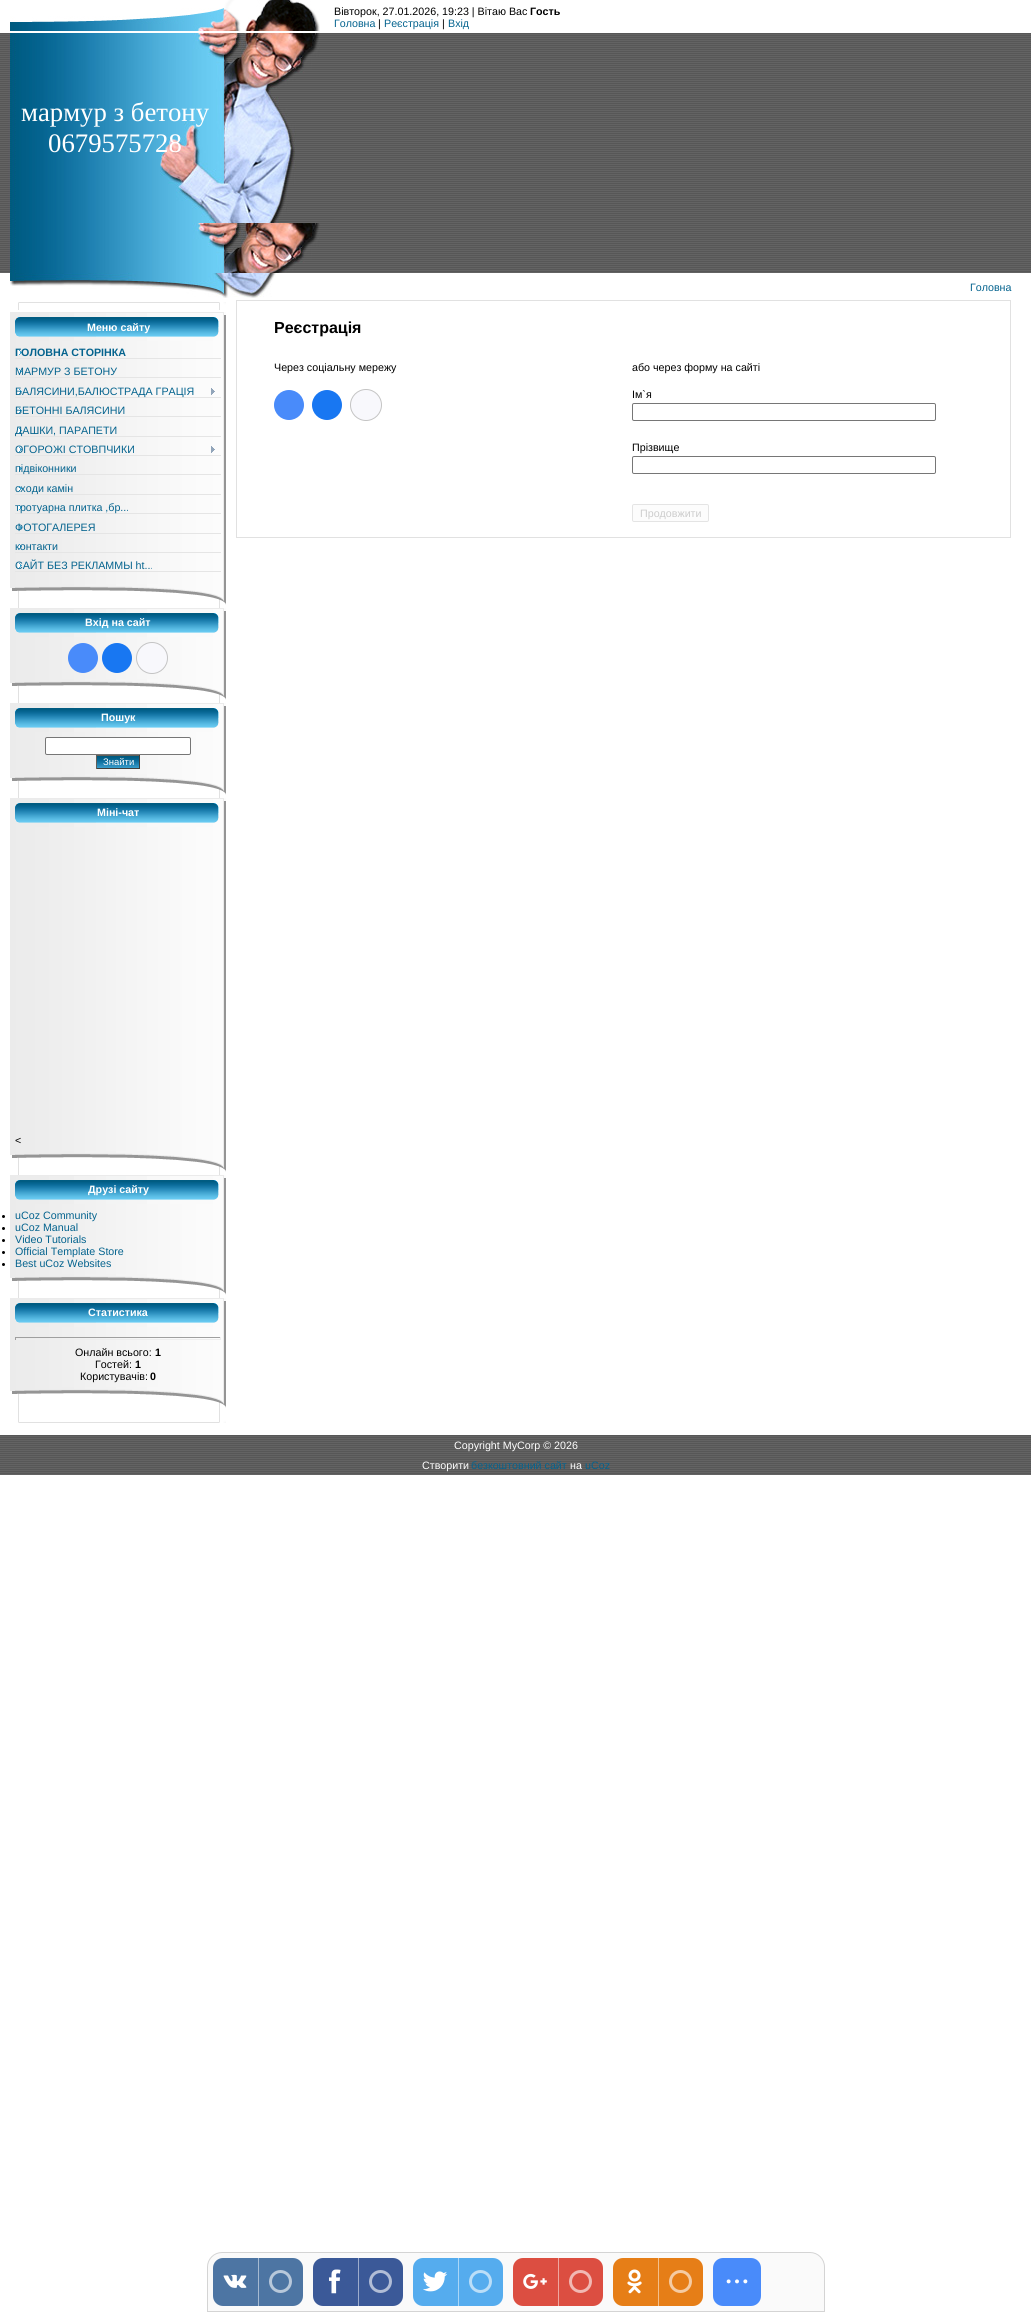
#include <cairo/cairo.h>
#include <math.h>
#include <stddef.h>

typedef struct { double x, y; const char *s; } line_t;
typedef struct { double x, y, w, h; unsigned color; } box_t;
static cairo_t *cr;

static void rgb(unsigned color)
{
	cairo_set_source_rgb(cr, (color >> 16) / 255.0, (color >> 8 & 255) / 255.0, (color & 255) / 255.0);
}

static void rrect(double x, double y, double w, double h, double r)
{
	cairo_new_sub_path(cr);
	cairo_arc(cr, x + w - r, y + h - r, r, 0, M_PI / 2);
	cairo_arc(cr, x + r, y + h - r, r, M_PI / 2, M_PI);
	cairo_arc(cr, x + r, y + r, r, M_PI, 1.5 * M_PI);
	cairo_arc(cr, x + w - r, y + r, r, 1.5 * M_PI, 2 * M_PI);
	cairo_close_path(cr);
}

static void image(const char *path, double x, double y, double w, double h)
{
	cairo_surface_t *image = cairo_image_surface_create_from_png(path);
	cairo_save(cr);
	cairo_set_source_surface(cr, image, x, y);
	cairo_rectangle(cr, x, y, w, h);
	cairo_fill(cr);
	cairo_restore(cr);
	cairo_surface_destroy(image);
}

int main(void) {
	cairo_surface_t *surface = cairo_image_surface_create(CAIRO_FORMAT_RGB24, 1031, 2312);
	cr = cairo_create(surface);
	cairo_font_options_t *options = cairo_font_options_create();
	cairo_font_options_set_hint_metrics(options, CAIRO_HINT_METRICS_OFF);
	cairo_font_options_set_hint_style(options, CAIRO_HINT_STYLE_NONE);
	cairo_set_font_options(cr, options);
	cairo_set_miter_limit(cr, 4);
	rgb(0xffffff);
	cairo_paint(cr);
	image("img/1.png", 10, 0, 310, 31);
	image("img/2.png", 0, 33, 334, 240);
	rgb(0x575757);
	cairo_rectangle(cr, 334, 33, 697, 1);
	cairo_fill(cr);
	image("img/3.png", 334, 34, 697, 239);
	image("img/4.png", 10, 273, 266, 25);
	image("img/5.png", 18, 605, 208, 818);
	image("img/6.png", 18, 302, 208, 8);
	image("img/7.png", 10, 312, 216, 29);
	image("img/8.png", 10, 341, 216, 243);
	image("img/9.png", 18, 350, 4, 5);
	rgb(0xe5e5e5);
	cairo_rectangle(cr, 15, 358, 206, 1);
	cairo_fill(cr);
	image("img/9.png", 18, 369, 4, 5);
	cairo_rectangle(cr, 15, 377, 206, 1);
	cairo_fill(cr);
	image("img/9.png", 18, 389, 4, 5);
	cairo_rectangle(cr, 15, 397, 206, 1);
	cairo_fill(cr);
	image("img/10.png", 211, 388, 4, 7);
	image("img/9.png", 18, 408, 4, 5);
	cairo_rectangle(cr, 15, 416, 206, 1);
	cairo_fill(cr);
	image("img/9.png", 18, 428, 4, 5);
	cairo_rectangle(cr, 15, 436, 206, 1);
	cairo_fill(cr);
	image("img/9.png", 18, 447, 4, 5);
	cairo_rectangle(cr, 15, 455, 206, 1);
	cairo_fill(cr);
	image("img/10.png", 211, 446, 4, 7);
	image("img/9.png", 18, 466, 4, 5);
	cairo_rectangle(cr, 15, 474, 206, 1);
	cairo_fill(cr);
	image("img/9.png", 18, 486, 4, 5);
	cairo_rectangle(cr, 15, 494, 206, 1);
	cairo_fill(cr);
	image("img/9.png", 18, 505, 4, 5);
	cairo_rectangle(cr, 15, 513, 206, 1);
	cairo_fill(cr);
	image("img/9.png", 18, 525, 4, 5);
	cairo_rectangle(cr, 15, 533, 206, 1);
	cairo_fill(cr);
	image("img/9.png", 18, 544, 4, 5);
	cairo_rectangle(cr, 15, 552, 206, 1);
	cairo_fill(cr);
	image("img/9.png", 18, 563, 4, 5);
	cairo_rectangle(cr, 15, 571, 206, 1);
	cairo_fill(cr);
	image("img/11.png", 10, 584, 216, 21);
	image("img/7.png", 10, 608, 216, 29);
	image("img/12.png", 10, 637, 216, 42);
	rgb(0x498bfa);
	cairo_arc(cr, 83, 658, 15, 0, 2 * M_PI);
	cairo_fill(cr);
	rgb(0x1877f2);
	cairo_arc(cr, 117, 658, 15, 0, 2 * M_PI);
	cairo_fill(cr);
	rgb(0xf8f8fc);
	cairo_arc(cr, 152, 658, 15.5, 0, 2 * M_PI);
	cairo_fill_preserve(cr);
	rgb(0xc4c4c4);
	cairo_set_line_width(cr, 1);
	cairo_stroke(cr);
	image("img/11.png", 10, 679, 216, 21);
	image("img/7.png", 10, 703, 216, 29);
	image("img/12.png", 10, 732, 216, 42);
	rgb(0xffffff);
	rrect(45.5, 737.5, 145, 17, 1.5);
	cairo_fill_preserve(cr);
	rgb(0x767676);
	cairo_stroke(cr);
	image("img/13.png", 97, 756, 42, 12);
	{
		static const box_t items[] = {
			{96, 755, 44, 1, 0x615e58},
			{139, 755, 1, 14, 0x413f3b},
			{96, 768, 44, 1, 0x413f3b},
			{96, 755, 1, 14, 0x615e58},
		};
		for (size_t i = 0; i < sizeof items / sizeof *items; i++) {
			rgb(items[i].color);
			cairo_rectangle(cr, items[i].x, items[i].y, items[i].w, items[i].h);
			cairo_fill(cr);
		}
	}
	image("img/11.png", 10, 774, 216, 21);
	image("img/7.png", 10, 798, 216, 29);
	image("img/14.png", 10, 827, 216, 324);
	image("img/11.png", 10, 1151, 216, 21);
	image("img/7.png", 10, 1175, 216, 29);
	image("img/15.png", 10, 1204, 216, 70);
	rgb(0x000000);
	cairo_arc(cr, 3.5, 1216.5, 1.5, 0, 2 * M_PI);
	cairo_fill(cr);
	cairo_arc(cr, 3.5, 1228.5, 1.5, 0, 2 * M_PI);
	cairo_fill(cr);
	cairo_arc(cr, 3.5, 1240.5, 1.5, 0, 2 * M_PI);
	cairo_fill(cr);
	cairo_arc(cr, 3.5, 1252.5, 1.5, 0, 2 * M_PI);
	cairo_fill(cr);
	cairo_arc(cr, 3.5, 1264.5, 1.5, 0, 2 * M_PI);
	cairo_fill(cr);
	image("img/11.png", 10, 1274, 216, 21);
	image("img/7.png", 10, 1298, 216, 29);
	image("img/16.png", 10, 1327, 216, 60);
	{
		static const box_t items[] = {
			{15, 1337, 206, 1, 0x9f9f9f},
			{220, 1337, 1, 3, 0xeeeeee},
			{15, 1339, 206, 1, 0xeeeeee},
			{15, 1337, 1, 3, 0x9f9f9f},
		};
		for (size_t i = 0; i < sizeof items / sizeof *items; i++) {
			rgb(items[i].color);
			cairo_rectangle(cr, items[i].x, items[i].y, items[i].w, items[i].h);
			cairo_fill(cr);
		}
	}
	image("img/11.png", 10, 1387, 216, 21);
	cairo_rectangle(cr, 236.5, 300.5, 774, 237);
	rgb(0xe1e1e1);
	cairo_stroke(cr);
	rgb(0x498bfa);
	cairo_arc(cr, 289, 405, 15, 0, 2 * M_PI);
	cairo_fill(cr);
	rgb(0x1877f2);
	cairo_arc(cr, 327, 405, 15, 0, 2 * M_PI);
	cairo_fill(cr);
	rgb(0xf8f8fc);
	cairo_arc(cr, 366, 405, 15.5, 0, 2 * M_PI);
	cairo_fill_preserve(cr);
	rgb(0xc4c4c4);
	cairo_stroke(cr);
	rrect(632.5, 403.5, 303, 17, 1.5);
	rgb(0x767676);
	cairo_stroke(cr);
	rrect(632.5, 456.5, 303, 17, 1.5);
	cairo_stroke(cr);
	rgb(0xfcfcfc);
	rrect(632.5, 504.5, 76, 17, 1.5);
	cairo_fill_preserve(cr);
	rgb(0xe4e4e4);
	cairo_stroke(cr);
	rgb(0x575757);
	cairo_rectangle(cr, 0, 1435, 1031, 1);
	cairo_fill(cr);
	image("img/17.png", 0, 1436, 1031, 39);
	rgb(0xfafafa);
	cairo_new_path(cr);
	cairo_move_to(cr, 222, 2252.5);
	cairo_line_to(cr, 810, 2252.5);
	cairo_curve_to(cr, 818, 2252.5, 824.5, 2259, 824.5, 2267);
	cairo_line_to(cr, 824.5, 2311.5);
	cairo_line_to(cr, 207.5, 2311.5);
	cairo_line_to(cr, 207.5, 2267);
	cairo_curve_to(cr, 207.5, 2259, 214, 2252.5, 222, 2252.5);
	cairo_close_path(cr);
	cairo_fill_preserve(cr);
	rgb(0xd4d4d4);
	cairo_stroke(cr);
	rgb(0x4d75a3);
	rrect(213, 2258, 90, 48, 10);
	cairo_fill(cr);
	image("img/18.png", 223, 2274, 24, 14);
	rgb(0xa6bad1);
	cairo_rectangle(cr, 258, 2258, 1, 48);
	cairo_fill(cr);
	cairo_arc(cr, 280.5, 2281.5, 10, 0, 2 * M_PI);
	rgb(0xb8c8da);
	cairo_set_line_width(cr, 3);
	cairo_stroke(cr);
	rgb(0x3b5998);
	rrect(313, 2258, 90, 48, 10);
	cairo_fill(cr);
	image("img/19.png", 329, 2269, 12, 25);
	rgb(0x9daccc);
	cairo_rectangle(cr, 358, 2258, 1, 48);
	cairo_fill(cr);
	cairo_arc(cr, 380.5, 2281.5, 10, 0, 2 * M_PI);
	rgb(0xb1bdd6);
	cairo_stroke(cr);
	rgb(0x55acee);
	rrect(413, 2258, 90, 48, 10);
	cairo_fill(cr);
	image("img/20.png", 423, 2271, 25, 21);
	rgb(0xaad6f7);
	cairo_rectangle(cr, 458, 2258, 1, 48);
	cairo_fill(cr);
	cairo_arc(cr, 480.5, 2281.5, 10, 0, 2 * M_PI);
	rgb(0xbbdef8);
	cairo_stroke(cr);
	rgb(0xdc4e41);
	rrect(513, 2258, 90, 48, 10);
	cairo_fill(cr);
	image("img/21.png", 523, 2273, 24, 16);
	rgb(0xeea7a0);
	cairo_rectangle(cr, 558, 2258, 1, 48);
	cairo_fill(cr);
	cairo_arc(cr, 580.5, 2281.5, 10, 0, 2 * M_PI);
	rgb(0xf1b8b3);
	cairo_stroke(cr);
	rgb(0xe67e17);
	rrect(613, 2258, 90, 48, 10);
	cairo_fill(cr);
	image("img/22.png", 627, 2269, 15, 25);
	rgb(0xf3bf8b);
	cairo_rectangle(cr, 658, 2258, 1, 48);
	cairo_fill(cr);
	cairo_arc(cr, 680.5, 2281.5, 10, 0, 2 * M_PI);
	rgb(0xf5cba2);
	cairo_stroke(cr);
	rgb(0x498bfa);
	rrect(713, 2258, 48, 48, 10);
	cairo_fill(cr);
	image("img/23.png", 726, 2279, 22, 5);
	cairo_select_font_face(cr, "Liberation Sans", CAIRO_FONT_SLANT_NORMAL, CAIRO_FONT_WEIGHT_NORMAL);
	cairo_set_font_size(cr, 10.7);
	rgb(0x000000);
	cairo_move_to(cr, 334, 15);
	cairo_show_text(cr, "Вівторок, 27.01.2026, 19:23 | Вітаю Вас");
	cairo_select_font_face(cr, "Liberation Sans", CAIRO_FONT_SLANT_NORMAL, CAIRO_FONT_WEIGHT_BOLD);
	cairo_move_to(cr, 530, 15);
	cairo_show_text(cr, "Гость");
	cairo_select_font_face(cr, "Liberation Sans", CAIRO_FONT_SLANT_NORMAL, CAIRO_FONT_WEIGHT_NORMAL);
	rgb(0x04638e);
	cairo_move_to(cr, 334, 27);
	cairo_show_text(cr, "Головна");
	rgb(0x000000);
	cairo_move_to(cr, 378, 27);
	cairo_show_text(cr, "|");
	rgb(0x04638e);
	cairo_move_to(cr, 384, 27);
	cairo_show_text(cr, "Реєстрація");
	rgb(0x000000);
	cairo_move_to(cr, 442, 27);
	cairo_show_text(cr, "|");
	rgb(0x04638e);
	cairo_move_to(cr, 448, 27);
	cairo_show_text(cr, "Вхід");
	cairo_select_font_face(cr, "Liberation Serif", CAIRO_FONT_SLANT_NORMAL, CAIRO_FONT_WEIGHT_NORMAL);
	cairo_set_font_size(cr, 26.75);
	rgb(0xffffff);
	cairo_move_to(cr, 21, 121);
	cairo_show_text(cr, "мармур з бетону");
	cairo_move_to(cr, 48, 152);
	cairo_show_text(cr, "0679575728");
	cairo_select_font_face(cr, "Liberation Sans", CAIRO_FONT_SLANT_NORMAL, CAIRO_FONT_WEIGHT_NORMAL);
	cairo_set_font_size(cr, 10.7);
	rgb(0x04638e);
	cairo_move_to(cr, 970, 291);
	cairo_show_text(cr, "Головна");
	cairo_select_font_face(cr, "Liberation Sans", CAIRO_FONT_SLANT_NORMAL, CAIRO_FONT_WEIGHT_BOLD);
	rgb(0xffffff);
	cairo_move_to(cr, 87, 331);
	cairo_show_text(cr, "Меню сайту");
	rgb(0x04638e);
	cairo_move_to(cr, 15, 356);
	cairo_show_text(cr, "ГОЛОВНА СТОРІНКА");
	cairo_select_font_face(cr, "Liberation Sans", CAIRO_FONT_SLANT_NORMAL, CAIRO_FONT_WEIGHT_NORMAL);
	{
		static const line_t items[] = {
			{15, 375, "МАРМУР З БЕТОНУ"},
			{15, 395, "БАЛЯСИНИ,БАЛЮСТРАДА ГРАЦІЯ"},
			{15, 414, "БЕТОННІ БАЛЯСИНИ"},
			{15, 434, "ДАШКИ, ПАРАПЕТИ"},
			{15, 453, "ОГОРОЖІ СТОВПЧИКИ"},
			{15, 472, "підвіконники"},
			{15, 492, "сходи камін"},
			{15, 511, "тротуарна плитка ,бр..."},
			{15, 531, "ФОТОГАЛЕРЕЯ"},
			{15, 550, "контакти"},
			{15, 569, "САЙТ БЕЗ РЕКЛАММЫ ht..."},
		};
		for (size_t i = 0; i < sizeof items / sizeof *items; i++) {
			cairo_move_to(cr, items[i].x, items[i].y);
			cairo_show_text(cr, items[i].s);
		}
	}
	cairo_select_font_face(cr, "Liberation Sans", CAIRO_FONT_SLANT_NORMAL, CAIRO_FONT_WEIGHT_BOLD);
	rgb(0xffffff);
	cairo_move_to(cr, 85, 626);
	cairo_show_text(cr, "Вхід на сайт");
	cairo_move_to(cr, 101, 721);
	cairo_show_text(cr, "Пошук");
	cairo_select_font_face(cr, "Liberation Sans", CAIRO_FONT_SLANT_NORMAL, CAIRO_FONT_WEIGHT_NORMAL);
	cairo_set_font_size(cr, 9.5);
	cairo_move_to(cr, 103, 765);
	cairo_show_text(cr, "Знайти");
	cairo_select_font_face(cr, "Liberation Sans", CAIRO_FONT_SLANT_NORMAL, CAIRO_FONT_WEIGHT_BOLD);
	cairo_set_font_size(cr, 10.7);
	cairo_move_to(cr, 97, 816);
	cairo_show_text(cr, "Міні-чат");
	cairo_select_font_face(cr, "Liberation Sans", CAIRO_FONT_SLANT_NORMAL, CAIRO_FONT_WEIGHT_NORMAL);
	rgb(0x000000);
	cairo_move_to(cr, 15, 1144);
	cairo_show_text(cr, "<");
	cairo_select_font_face(cr, "Liberation Sans", CAIRO_FONT_SLANT_NORMAL, CAIRO_FONT_WEIGHT_BOLD);
	rgb(0xffffff);
	cairo_move_to(cr, 88, 1193);
	cairo_show_text(cr, "Друзі сайту");
	cairo_select_font_face(cr, "Liberation Sans", CAIRO_FONT_SLANT_NORMAL, CAIRO_FONT_WEIGHT_NORMAL);
	rgb(0x04638e);
	{
		static const line_t items[] = {
			{15, 1219, "uCoz Community"},
			{15, 1231, "uCoz Manual"},
			{15, 1243, "Video Tutorials"},
			{15, 1255, "Official Template Store"},
			{15, 1267, "Best uCoz Websites"},
		};
		for (size_t i = 0; i < sizeof items / sizeof *items; i++) {
			cairo_move_to(cr, items[i].x, items[i].y);
			cairo_show_text(cr, items[i].s);
		}
	}
	cairo_select_font_face(cr, "Liberation Sans", CAIRO_FONT_SLANT_NORMAL, CAIRO_FONT_WEIGHT_BOLD);
	rgb(0xffffff);
	cairo_move_to(cr, 88, 1316);
	cairo_show_text(cr, "Статистика");
	cairo_select_font_face(cr, "Liberation Sans", CAIRO_FONT_SLANT_NORMAL, CAIRO_FONT_WEIGHT_NORMAL);
	rgb(0x000000);
	cairo_move_to(cr, 75, 1356);
	cairo_show_text(cr, "Онлайн всього:");
	cairo_select_font_face(cr, "Liberation Sans", CAIRO_FONT_SLANT_NORMAL, CAIRO_FONT_WEIGHT_BOLD);
	cairo_move_to(cr, 155, 1356);
	cairo_show_text(cr, "1");
	cairo_select_font_face(cr, "Liberation Sans", CAIRO_FONT_SLANT_NORMAL, CAIRO_FONT_WEIGHT_NORMAL);
	cairo_move_to(cr, 95, 1368);
	cairo_show_text(cr, "Гостей:");
	cairo_select_font_face(cr, "Liberation Sans", CAIRO_FONT_SLANT_NORMAL, CAIRO_FONT_WEIGHT_BOLD);
	cairo_move_to(cr, 135, 1368);
	cairo_show_text(cr, "1");
	cairo_select_font_face(cr, "Liberation Sans", CAIRO_FONT_SLANT_NORMAL, CAIRO_FONT_WEIGHT_NORMAL);
	cairo_move_to(cr, 80, 1380);
	cairo_show_text(cr, "Користувачів:");
	cairo_select_font_face(cr, "Liberation Sans", CAIRO_FONT_SLANT_NORMAL, CAIRO_FONT_WEIGHT_BOLD);
	cairo_move_to(cr, 150, 1380);
	cairo_show_text(cr, "0");
	cairo_set_font_size(cr, 16);
	cairo_move_to(cr, 274, 333);
	cairo_show_text(cr, "Реєстрація");
	cairo_select_font_face(cr, "Liberation Sans", CAIRO_FONT_SLANT_NORMAL, CAIRO_FONT_WEIGHT_NORMAL);
	cairo_set_font_size(cr, 10.7);
	{
		static const line_t items[] = {
			{274, 371, "Через соціальну мережу"},
			{632, 371, "або через форму на сайті"},
			{632, 398, "Ім`я"},
			{632, 451, "Прізвище"},
		};
		for (size_t i = 0; i < sizeof items / sizeof *items; i++) {
			cairo_move_to(cr, items[i].x, items[i].y);
			cairo_show_text(cr, items[i].s);
		}
	}
	rgb(0xcccccc);
	cairo_move_to(cr, 640, 517);
	cairo_show_text(cr, "Продовжити");
	rgb(0xffffff);
	cairo_move_to(cr, 454, 1449);
	cairo_show_text(cr, "Copyright MyCorp © 2026");
	cairo_move_to(cr, 422, 1469);
	cairo_show_text(cr, "Створити");
	rgb(0x04638e);
	cairo_move_to(cr, 471, 1469);
	cairo_show_text(cr, "безкоштовний сайт");
	rgb(0xffffff);
	cairo_move_to(cr, 570, 1469);
	cairo_show_text(cr, "на");
	rgb(0x04638e);
	cairo_move_to(cr, 585, 1469);
	cairo_show_text(cr, "uCoz");
	cairo_surface_write_to_png(surface, "page.png");
	cairo_font_options_destroy(options);
	cairo_destroy(cr);
	cairo_surface_destroy(surface);
	return 0;
}
